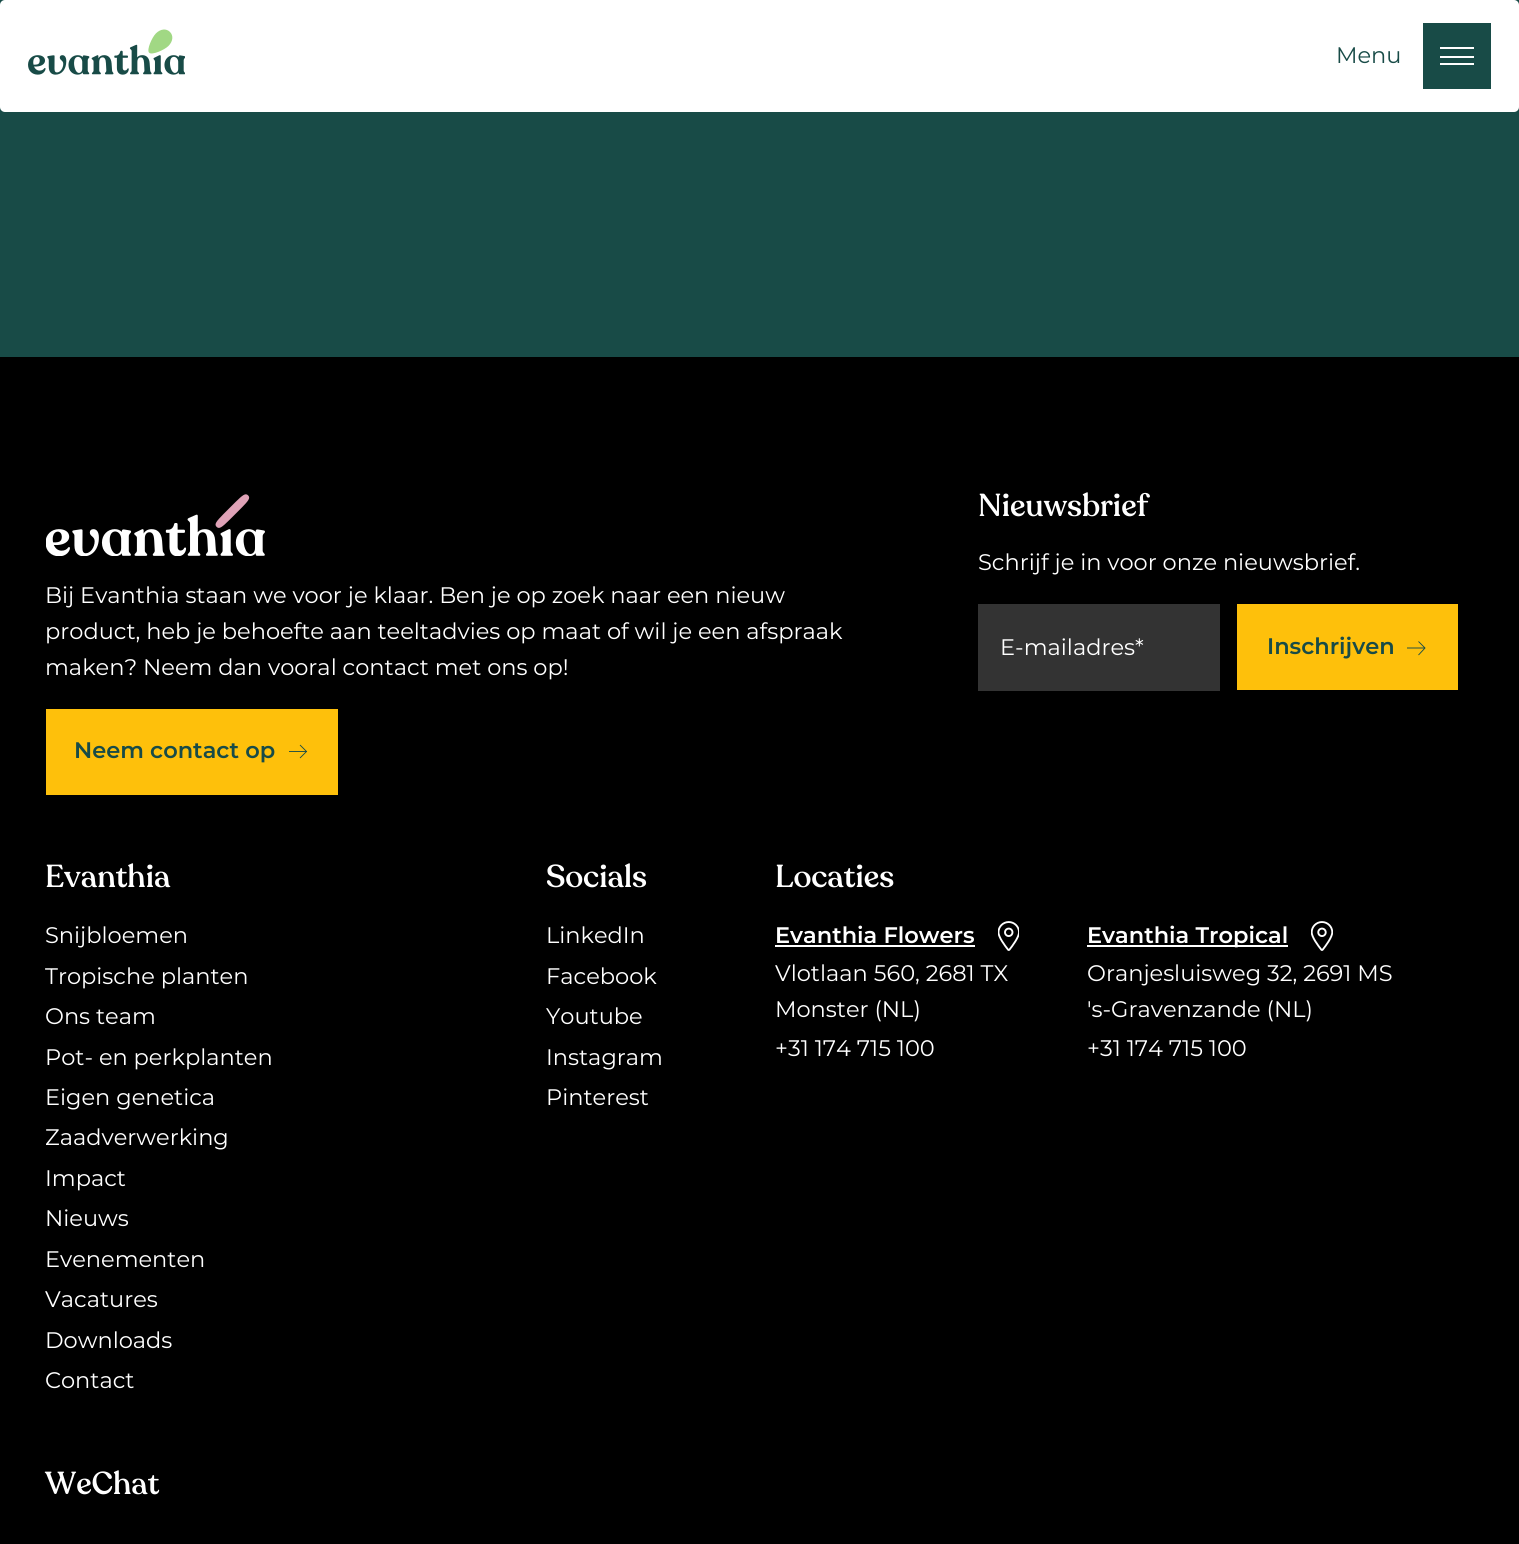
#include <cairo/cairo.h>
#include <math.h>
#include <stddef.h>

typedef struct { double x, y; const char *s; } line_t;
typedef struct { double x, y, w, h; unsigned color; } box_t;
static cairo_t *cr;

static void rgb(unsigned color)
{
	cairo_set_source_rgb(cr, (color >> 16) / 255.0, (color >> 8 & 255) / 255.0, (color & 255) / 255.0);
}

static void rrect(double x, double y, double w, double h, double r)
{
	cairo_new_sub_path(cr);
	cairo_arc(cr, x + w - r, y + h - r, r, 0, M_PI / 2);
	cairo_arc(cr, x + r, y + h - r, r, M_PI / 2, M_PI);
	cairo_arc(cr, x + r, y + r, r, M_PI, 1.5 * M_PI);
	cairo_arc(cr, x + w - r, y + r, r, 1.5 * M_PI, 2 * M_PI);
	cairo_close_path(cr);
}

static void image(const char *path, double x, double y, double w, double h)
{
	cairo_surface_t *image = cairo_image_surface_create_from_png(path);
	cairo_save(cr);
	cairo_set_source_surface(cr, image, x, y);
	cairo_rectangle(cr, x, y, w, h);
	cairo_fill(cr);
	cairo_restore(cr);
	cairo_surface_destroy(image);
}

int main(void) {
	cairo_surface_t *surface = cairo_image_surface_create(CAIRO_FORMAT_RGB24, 1519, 1544);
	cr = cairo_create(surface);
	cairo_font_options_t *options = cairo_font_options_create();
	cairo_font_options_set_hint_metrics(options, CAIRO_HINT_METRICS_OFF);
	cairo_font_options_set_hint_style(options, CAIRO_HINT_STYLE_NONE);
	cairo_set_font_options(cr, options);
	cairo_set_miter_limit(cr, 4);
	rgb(0x184b47);
	cairo_paint(cr);
	rgb(0xffffff);
	rrect(0, 0, 1519, 112, 5);
	cairo_fill(cr);
	image("img/1.png", 28, 29, 157, 46);
	{
		static const box_t items[] = {
			{1423, 23, 68, 66, 0x184b47},
			{1440, 47, 34, 2, 0xffffff},
			{1440, 56, 34, 2, 0xffffff},
			{1440, 63, 34, 2, 0xffffff},
			{0, 357, 1519, 1187, 0x000000},
		};
		for (size_t i = 0; i < sizeof items / sizeof *items; i++) {
			rgb(items[i].color);
			cairo_rectangle(cr, items[i].x, items[i].y, items[i].w, items[i].h);
			cairo_fill(cr);
		}
	}
	image("img/2.png", 46, 494, 219, 62);
	rgb(0xfec00b);
	cairo_rectangle(cr, 46, 709, 292, 86);
	cairo_fill(cr);
	cairo_new_path(cr);
	cairo_move_to(cr, 300, 758);
	cairo_line_to(cr, 306.5, 751.5);
	cairo_line_to(cr, 300, 745);
	rgb(0x184b47);
	cairo_set_line_width(cr, 0.9);
	cairo_stroke(cr);
	cairo_set_source_rgba(cr, 0.094, 0.294, 0.278, 0.9);
	cairo_rectangle(cr, 289, 751, 18, 1);
	cairo_fill(cr);
	rgb(0x333333);
	cairo_rectangle(cr, 978, 604, 242, 87);
	cairo_fill(cr);
	rgb(0xfec00b);
	cairo_rectangle(cr, 1237, 604, 221, 86);
	cairo_fill(cr);
	cairo_new_path(cr);
	cairo_move_to(cr, 1418.5, 655);
	cairo_line_to(cr, 1425, 648);
	cairo_line_to(cr, 1418.5, 641.5);
	cairo_move_to(cr, 1425, 648);
	cairo_line_to(cr, 1407, 648);
	rgb(0x184b47);
	cairo_stroke(cr);
	rgb(0xffffff);
	cairo_rectangle(cr, 775, 945, 200, 2);
	cairo_fill(cr);
	image("img/3.png", 998, 921, 21, 30);
	cairo_rectangle(cr, 1087, 945, 201, 2);
	cairo_fill(cr);
	image("img/4.png", 1311, 921, 22, 30);
	cairo_select_font_face(cr, "Montserrat", CAIRO_FONT_SLANT_NORMAL, CAIRO_FONT_WEIGHT_NORMAL);
	cairo_set_font_size(cr, 22.5);
	rgb(0x184b47);
	cairo_move_to(cr, 1336, 63);
	cairo_show_text(cr, "Menu");
	rgb(0xffffff);
	{
		static const line_t items[] = {
			{45, 603, "Bij Evanthia staan we voor je klaar. Ben je op zoek naar een nieuw"},
			{45, 639, "product, heb je behoefte aan teeltadvies op maat of wil je een afspraak"},
			{45, 675, "maken? Neem dan vooral contact met ons op!"},
		};
		for (size_t i = 0; i < sizeof items / sizeof *items; i++) {
			cairo_move_to(cr, items[i].x, items[i].y);
			cairo_show_text(cr, items[i].s);
		}
	}
	cairo_select_font_face(cr, "Montserrat SemiBold", CAIRO_FONT_SLANT_NORMAL, CAIRO_FONT_WEIGHT_NORMAL);
	rgb(0x184b47);
	cairo_move_to(cr, 74, 758);
	cairo_show_text(cr, "Neem contact op");
	cairo_select_font_face(cr, "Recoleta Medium", CAIRO_FONT_SLANT_NORMAL, CAIRO_FONT_WEIGHT_NORMAL);
	cairo_set_font_size(cr, 31.5);
	rgb(0xffffff);
	cairo_move_to(cr, 978, 516);
	cairo_show_text(cr, "Nieuwsbrief");
	cairo_select_font_face(cr, "Montserrat", CAIRO_FONT_SLANT_NORMAL, CAIRO_FONT_WEIGHT_NORMAL);
	cairo_set_font_size(cr, 22.5);
	cairo_move_to(cr, 978, 570);
	cairo_show_text(cr, "Schrijf je in voor onze nieuwsbrief.");
	cairo_move_to(cr, 1000, 655);
	cairo_show_text(cr, "E-mailadres*");
	cairo_select_font_face(cr, "Montserrat SemiBold", CAIRO_FONT_SLANT_NORMAL, CAIRO_FONT_WEIGHT_NORMAL);
	rgb(0x184b47);
	cairo_move_to(cr, 1267, 654);
	cairo_show_text(cr, "Inschrijven");
	cairo_select_font_face(cr, "Recoleta Medium", CAIRO_FONT_SLANT_NORMAL, CAIRO_FONT_WEIGHT_NORMAL);
	cairo_set_font_size(cr, 31.5);
	rgb(0xffffff);
	cairo_move_to(cr, 45, 887);
	cairo_show_text(cr, "Evanthia");
	cairo_select_font_face(cr, "Montserrat", CAIRO_FONT_SLANT_NORMAL, CAIRO_FONT_WEIGHT_NORMAL);
	cairo_set_font_size(cr, 22.5);
	{
		static const line_t items[] = {
			{45, 943, "Snijbloemen"},
			{45, 984, "Tropische planten"},
			{45, 1024, "Ons team"},
			{45, 1065, "Pot- en perkplanten"},
			{45, 1105, "Eigen genetica"},
			{45, 1145, "Zaadverwerking"},
			{45, 1186, "Impact"},
			{45, 1226, "Nieuws"},
			{45, 1267, "Evenementen"},
			{45, 1307, "Vacatures"},
			{45, 1348, "Downloads"},
			{45, 1388, "Contact"},
		};
		for (size_t i = 0; i < sizeof items / sizeof *items; i++) {
			cairo_move_to(cr, items[i].x, items[i].y);
			cairo_show_text(cr, items[i].s);
		}
	}
	cairo_select_font_face(cr, "Recoleta Medium", CAIRO_FONT_SLANT_NORMAL, CAIRO_FONT_WEIGHT_NORMAL);
	cairo_set_font_size(cr, 31.5);
	cairo_move_to(cr, 546, 887);
	cairo_show_text(cr, "Socials");
	cairo_select_font_face(cr, "Montserrat", CAIRO_FONT_SLANT_NORMAL, CAIRO_FONT_WEIGHT_NORMAL);
	cairo_set_font_size(cr, 22.5);
	{
		static const line_t items[] = {
			{546, 943, "LinkedIn"},
			{546, 984, "Facebook"},
			{546, 1024, "Youtube"},
			{546, 1065, "Instagram"},
			{546, 1105, "Pinterest"},
		};
		for (size_t i = 0; i < sizeof items / sizeof *items; i++) {
			cairo_move_to(cr, items[i].x, items[i].y);
			cairo_show_text(cr, items[i].s);
		}
	}
	cairo_select_font_face(cr, "Recoleta Medium", CAIRO_FONT_SLANT_NORMAL, CAIRO_FONT_WEIGHT_NORMAL);
	cairo_set_font_size(cr, 31.5);
	cairo_move_to(cr, 775, 887);
	cairo_show_text(cr, "Locaties");
	cairo_select_font_face(cr, "Montserrat SemiBold", CAIRO_FONT_SLANT_NORMAL, CAIRO_FONT_WEIGHT_NORMAL);
	cairo_set_font_size(cr, 22.5);
	cairo_move_to(cr, 775, 943);
	cairo_show_text(cr, "Evanthia Flowers");
	cairo_select_font_face(cr, "Montserrat", CAIRO_FONT_SLANT_NORMAL, CAIRO_FONT_WEIGHT_NORMAL);
	{
		static const line_t items[] = {
			{775, 981, "Vlotlaan 560, 2681 TX"},
			{775, 1017, "Monster (NL)"},
			{775, 1056, "+31 174 715 100"},
		};
		for (size_t i = 0; i < sizeof items / sizeof *items; i++) {
			cairo_move_to(cr, items[i].x, items[i].y);
			cairo_show_text(cr, items[i].s);
		}
	}
	cairo_select_font_face(cr, "Montserrat SemiBold", CAIRO_FONT_SLANT_NORMAL, CAIRO_FONT_WEIGHT_NORMAL);
	cairo_move_to(cr, 1087, 943);
	cairo_show_text(cr, "Evanthia Tropical");
	cairo_select_font_face(cr, "Montserrat", CAIRO_FONT_SLANT_NORMAL, CAIRO_FONT_WEIGHT_NORMAL);
	{
		static const line_t items[] = {
			{1087, 981, "Oranjesluisweg 32, 2691 MS"},
			{1087, 1017, "'s-Gravenzande (NL)"},
			{1087, 1056, "+31 174 715 100"},
		};
		for (size_t i = 0; i < sizeof items / sizeof *items; i++) {
			cairo_move_to(cr, items[i].x, items[i].y);
			cairo_show_text(cr, items[i].s);
		}
	}
	cairo_select_font_face(cr, "Recoleta Medium", CAIRO_FONT_SLANT_NORMAL, CAIRO_FONT_WEIGHT_NORMAL);
	cairo_set_font_size(cr, 31.5);
	cairo_move_to(cr, 45, 1494);
	cairo_show_text(cr, "WeChat");
	cairo_surface_write_to_png(surface, "page.png");
	cairo_font_options_destroy(options);
	cairo_destroy(cr);
	cairo_surface_destroy(surface);
	return 0;
}
